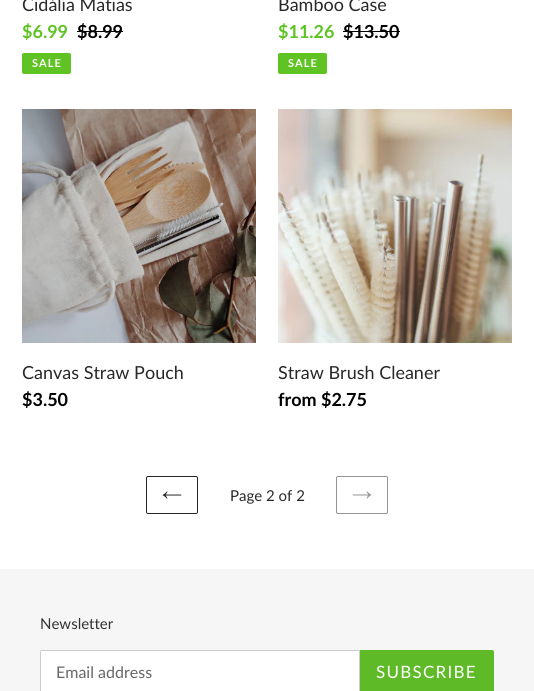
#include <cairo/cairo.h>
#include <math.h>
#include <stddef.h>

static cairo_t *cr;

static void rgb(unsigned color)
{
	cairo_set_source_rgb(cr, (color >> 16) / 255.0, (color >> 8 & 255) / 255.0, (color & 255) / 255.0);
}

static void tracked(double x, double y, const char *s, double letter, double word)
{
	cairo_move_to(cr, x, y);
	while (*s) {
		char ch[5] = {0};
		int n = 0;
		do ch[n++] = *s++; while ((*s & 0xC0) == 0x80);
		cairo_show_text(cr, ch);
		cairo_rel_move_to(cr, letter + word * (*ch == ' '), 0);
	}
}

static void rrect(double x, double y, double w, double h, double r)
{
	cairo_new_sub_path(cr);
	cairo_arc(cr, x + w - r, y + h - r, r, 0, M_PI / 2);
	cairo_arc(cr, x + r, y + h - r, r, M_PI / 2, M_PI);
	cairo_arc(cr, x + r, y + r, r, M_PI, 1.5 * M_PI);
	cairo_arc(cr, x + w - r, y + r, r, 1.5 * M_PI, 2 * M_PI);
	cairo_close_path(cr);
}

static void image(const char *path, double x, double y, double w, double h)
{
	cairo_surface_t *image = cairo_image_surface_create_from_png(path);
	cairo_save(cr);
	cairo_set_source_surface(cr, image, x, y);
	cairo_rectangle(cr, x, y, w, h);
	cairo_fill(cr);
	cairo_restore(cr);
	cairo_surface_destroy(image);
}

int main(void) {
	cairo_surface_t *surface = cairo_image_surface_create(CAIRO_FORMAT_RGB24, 534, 691);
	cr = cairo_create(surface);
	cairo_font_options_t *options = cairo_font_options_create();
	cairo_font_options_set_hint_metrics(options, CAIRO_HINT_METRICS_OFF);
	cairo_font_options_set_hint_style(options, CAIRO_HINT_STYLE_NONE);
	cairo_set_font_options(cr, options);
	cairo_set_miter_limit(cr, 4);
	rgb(0xffffff);
	cairo_paint(cr);
	rgb(0x000000);
	cairo_rectangle(cr, 77, 31, 46, 1);
	cairo_fill(cr);
	rgb(0x5ec323);
	rrect(22.5, 53.5, 48, 20, 1.5);
	cairo_fill_preserve(cr);
	cairo_set_line_width(cr, 1);
	cairo_stroke(cr);
	rgb(0x000000);
	cairo_rectangle(cr, 343, 31, 57, 1);
	cairo_fill(cr);
	rgb(0x5ec323);
	rrect(278.5, 53.5, 48, 20, 1.5);
	cairo_fill_preserve(cr);
	cairo_stroke(cr);
	image("img/1.png", 22, 109, 234, 234);
	image("img/2.png", 278, 109, 234, 234);
	rrect(146.5, 476.5, 51, 37, 1.5);
	rgb(0x282828);
	cairo_stroke(cr);
	image("img/3.png", 162, 491, 20, 8);
	rrect(336.5, 476.5, 51, 37, 1.5);
	rgb(0x949494);
	cairo_stroke(cr);
	image("img/4.png", 352, 491, 20, 8);
	rgb(0xf6f6f6);
	cairo_rectangle(cr, 0, 569, 534, 122);
	cairo_fill(cr);
	rgb(0xffffff);
	cairo_new_path(cr);
	cairo_move_to(cr, 42, 650.5);
	cairo_line_to(cr, 359.5, 650.5);
	cairo_line_to(cr, 359.5, 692.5);
	cairo_line_to(cr, 42, 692.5);
	cairo_curve_to(cr, 41, 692.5, 40.5, 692, 40.5, 691);
	cairo_line_to(cr, 40.5, 652);
	cairo_curve_to(cr, 40.5, 651, 41, 650.5, 42, 650.5);
	cairo_close_path(cr);
	cairo_fill_preserve(cr);
	rgb(0xcccccc);
	cairo_stroke(cr);
	rgb(0x5ebb27);
	cairo_new_path(cr);
	cairo_move_to(cr, 360, 650);
	cairo_line_to(cr, 492, 650);
	cairo_curve_to(cr, 493, 650, 494, 651, 494, 652);
	cairo_line_to(cr, 494, 691);
	cairo_curve_to(cr, 494, 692, 493, 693, 492, 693);
	cairo_line_to(cr, 360, 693);
	cairo_close_path(cr);
	cairo_fill(cr);
	cairo_select_font_face(cr, "Lato", CAIRO_FONT_SLANT_NORMAL, CAIRO_FONT_WEIGHT_NORMAL);
	cairo_set_font_size(cr, 18);
	rgb(0x282828);
	cairo_move_to(cr, 22, 11);
	cairo_show_text(cr, "Cidália Matias");
	cairo_select_font_face(cr, "Lato", CAIRO_FONT_SLANT_NORMAL, CAIRO_FONT_WEIGHT_BOLD);
	rgb(0x5ec323);
	cairo_move_to(cr, 22, 38);
	cairo_show_text(cr, "$6.99");
	rgb(0x000000);
	cairo_move_to(cr, 77, 38);
	cairo_show_text(cr, "$8.99");
	cairo_set_font_size(cr, 11);
	rgb(0xffffff);
	tracked(32, 67, "SALE", 1, 0);
	cairo_select_font_face(cr, "Lato", CAIRO_FONT_SLANT_NORMAL, CAIRO_FONT_WEIGHT_NORMAL);
	cairo_set_font_size(cr, 18);
	rgb(0x282828);
	cairo_move_to(cr, 278, 11);
	cairo_show_text(cr, "Bamboo Case");
	cairo_select_font_face(cr, "Lato", CAIRO_FONT_SLANT_NORMAL, CAIRO_FONT_WEIGHT_BOLD);
	rgb(0x5ec323);
	cairo_move_to(cr, 278, 38);
	cairo_show_text(cr, "$11.26");
	rgb(0x000000);
	cairo_move_to(cr, 343, 38);
	cairo_show_text(cr, "$13.50");
	cairo_set_font_size(cr, 11);
	rgb(0xffffff);
	tracked(288, 67, "SALE", 1, 0);
	cairo_select_font_face(cr, "Lato", CAIRO_FONT_SLANT_NORMAL, CAIRO_FONT_WEIGHT_NORMAL);
	cairo_set_font_size(cr, 18);
	rgb(0x282828);
	cairo_move_to(cr, 22, 379);
	cairo_show_text(cr, "Canvas Straw Pouch");
	cairo_select_font_face(cr, "Lato", CAIRO_FONT_SLANT_NORMAL, CAIRO_FONT_WEIGHT_BOLD);
	rgb(0x000000);
	cairo_move_to(cr, 22, 406);
	cairo_show_text(cr, "$3.50");
	cairo_select_font_face(cr, "Lato", CAIRO_FONT_SLANT_NORMAL, CAIRO_FONT_WEIGHT_NORMAL);
	rgb(0x282828);
	cairo_move_to(cr, 278, 379);
	cairo_show_text(cr, "Straw Brush Cleaner");
	cairo_select_font_face(cr, "Lato", CAIRO_FONT_SLANT_NORMAL, CAIRO_FONT_WEIGHT_BOLD);
	rgb(0x000000);
	cairo_move_to(cr, 278, 406);
	cairo_show_text(cr, "from $2.75");
	cairo_select_font_face(cr, "Lato", CAIRO_FONT_SLANT_NORMAL, CAIRO_FONT_WEIGHT_NORMAL);
	cairo_set_font_size(cr, 15);
	rgb(0x282828);
	cairo_move_to(cr, 230, 501);
	cairo_show_text(cr, "Page 2 of 2");
	rgb(0x333232);
	cairo_move_to(cr, 40, 629);
	cairo_show_text(cr, "Newsletter");
	cairo_set_font_size(cr, 16);
	rgb(0x666666);
	cairo_move_to(cr, 56, 678);
	cairo_show_text(cr, "Email address");
	cairo_set_font_size(cr, 17);
	rgb(0xffffff);
	tracked(376, 678, "SUBSCRIBE", 1.25, 0);
	cairo_surface_write_to_png(surface, "page.png");
	cairo_font_options_destroy(options);
	cairo_destroy(cr);
	cairo_surface_destroy(surface);
	return 0;
}
